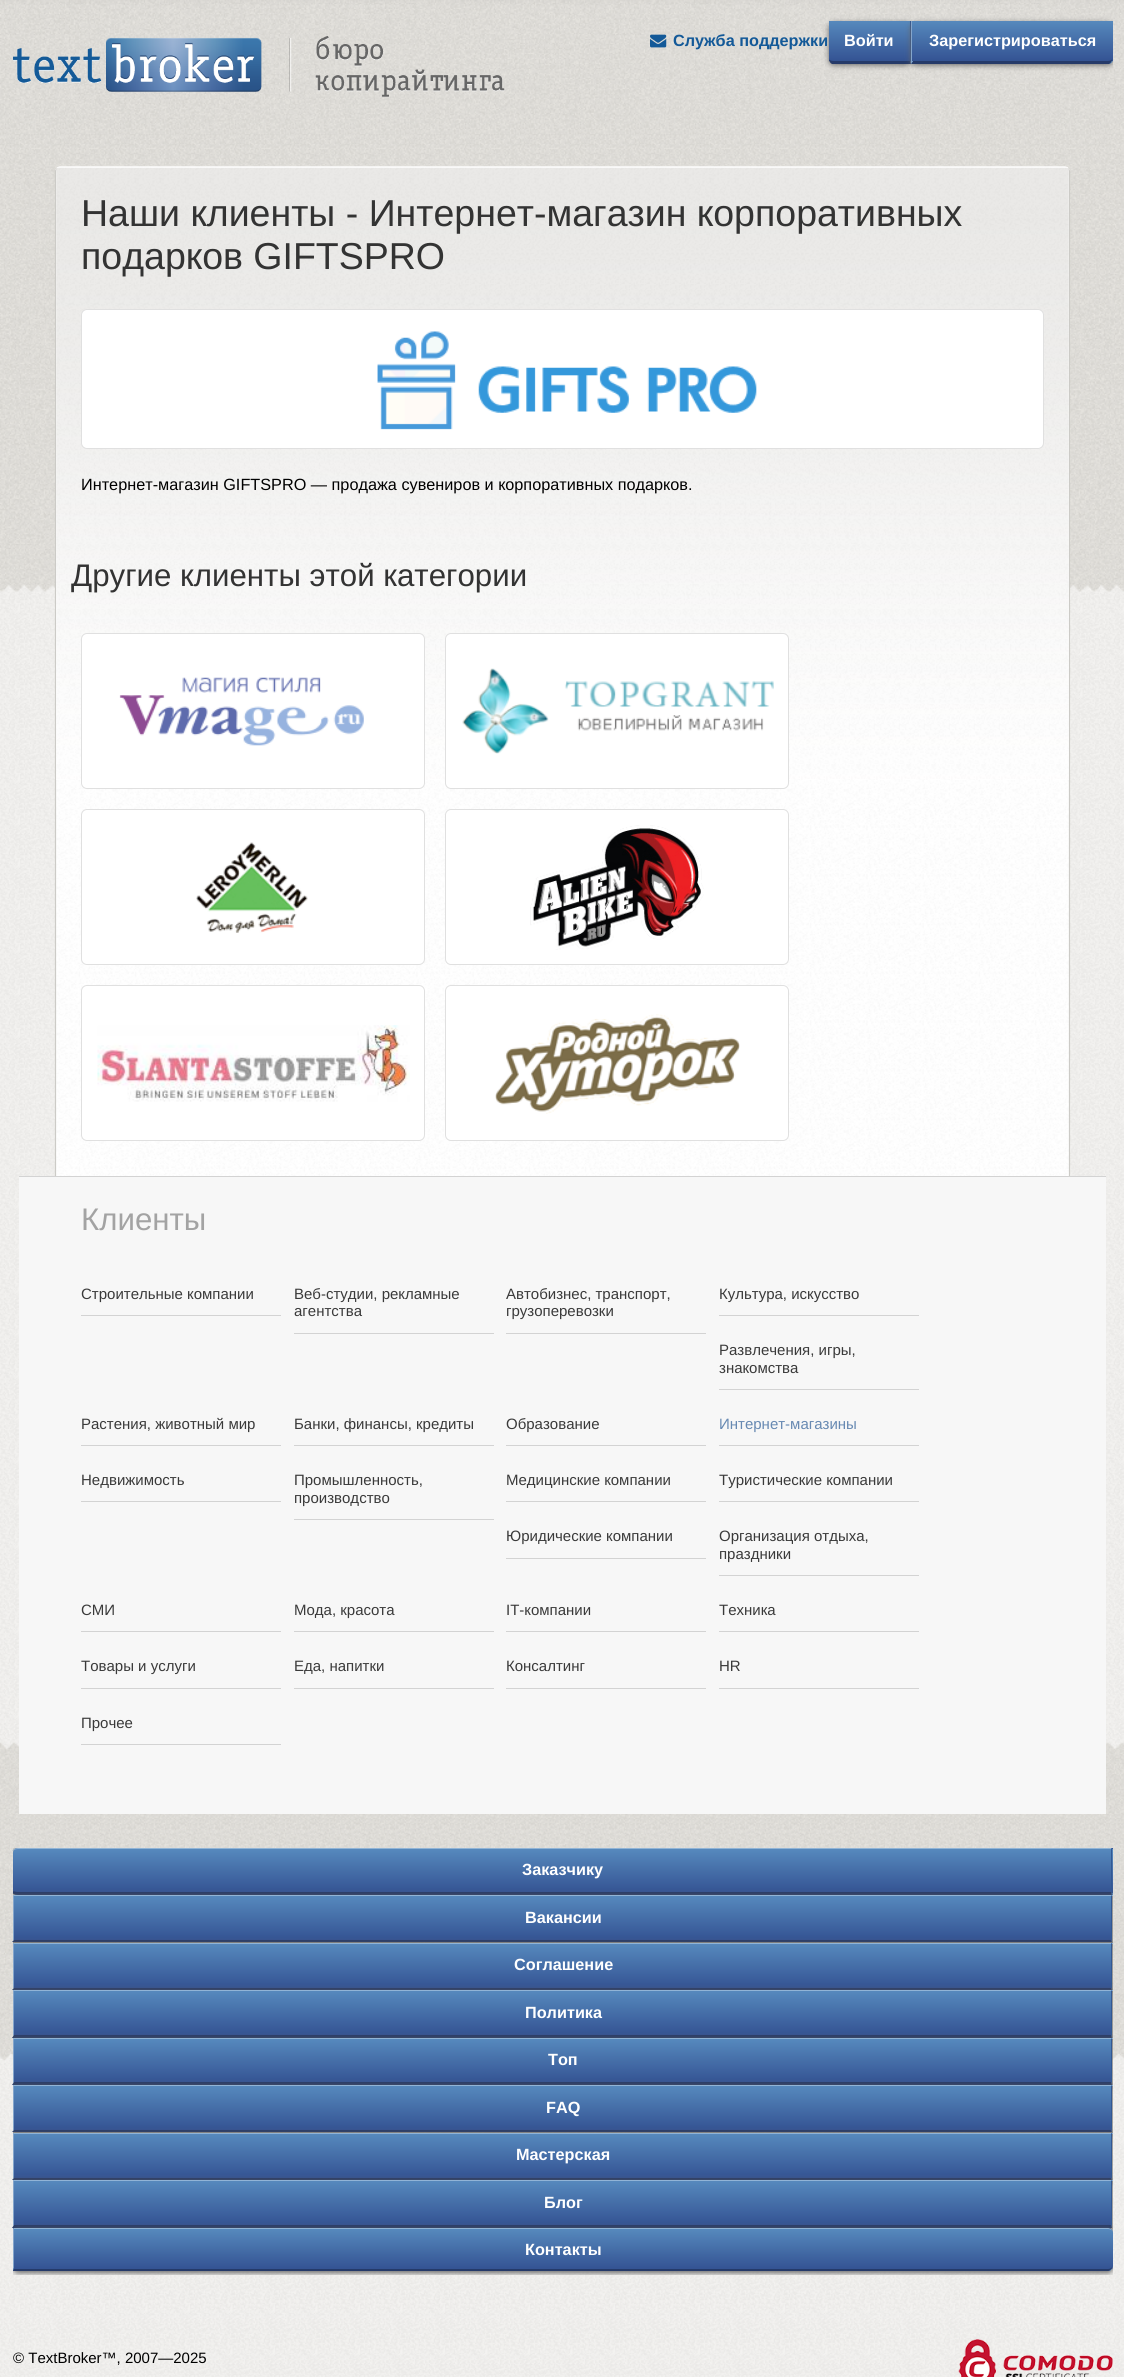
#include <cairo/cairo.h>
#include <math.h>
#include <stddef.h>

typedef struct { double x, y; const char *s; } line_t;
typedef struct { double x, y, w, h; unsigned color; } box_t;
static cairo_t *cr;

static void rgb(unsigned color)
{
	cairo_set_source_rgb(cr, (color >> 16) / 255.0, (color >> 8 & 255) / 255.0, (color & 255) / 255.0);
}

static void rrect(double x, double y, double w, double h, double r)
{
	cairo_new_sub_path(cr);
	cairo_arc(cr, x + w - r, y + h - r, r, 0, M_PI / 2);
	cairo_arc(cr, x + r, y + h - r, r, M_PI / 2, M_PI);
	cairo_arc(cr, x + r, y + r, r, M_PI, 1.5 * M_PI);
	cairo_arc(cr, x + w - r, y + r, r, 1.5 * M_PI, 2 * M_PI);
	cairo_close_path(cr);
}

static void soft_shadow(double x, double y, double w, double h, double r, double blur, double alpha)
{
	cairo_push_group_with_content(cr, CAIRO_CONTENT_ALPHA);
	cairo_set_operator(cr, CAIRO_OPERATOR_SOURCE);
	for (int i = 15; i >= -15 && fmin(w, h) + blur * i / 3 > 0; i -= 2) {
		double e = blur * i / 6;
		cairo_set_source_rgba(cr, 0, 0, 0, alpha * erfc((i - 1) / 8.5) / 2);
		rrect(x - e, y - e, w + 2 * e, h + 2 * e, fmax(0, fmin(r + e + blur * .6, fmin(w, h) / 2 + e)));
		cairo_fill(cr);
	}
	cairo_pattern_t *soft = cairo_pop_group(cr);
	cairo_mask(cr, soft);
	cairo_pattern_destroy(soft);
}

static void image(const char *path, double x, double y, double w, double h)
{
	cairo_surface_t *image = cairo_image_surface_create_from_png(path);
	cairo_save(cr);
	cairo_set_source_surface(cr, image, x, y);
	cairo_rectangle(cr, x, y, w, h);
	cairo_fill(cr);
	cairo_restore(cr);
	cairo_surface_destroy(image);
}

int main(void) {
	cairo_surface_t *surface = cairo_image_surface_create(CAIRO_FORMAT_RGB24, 1124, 2377);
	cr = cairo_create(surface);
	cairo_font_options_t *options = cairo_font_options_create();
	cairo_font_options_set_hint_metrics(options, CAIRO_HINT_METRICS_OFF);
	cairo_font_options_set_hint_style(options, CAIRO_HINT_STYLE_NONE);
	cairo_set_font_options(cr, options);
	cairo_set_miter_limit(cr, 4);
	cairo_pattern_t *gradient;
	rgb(0xffffff);
	cairo_paint(cr);
	image("img/1.png", 0, 591, 1124, 1786);
	image("img/2.png", 0, 122, 1124, 470);
	image("img/3.png", 0, 0, 1124, 123);
	image("img/4.png", 13, 36, 492, 61);
	image("img/5.png", 650, 34, 17, 14);
	rgb(0x666666);
	soft_shadow(829, 23, 82, 42, 5, 3, 1);
	gradient = cairo_pattern_create_linear(869, 21, 869, 61);
	cairo_pattern_add_color_stop_rgba(gradient, 0, 0.337, 0.537, 0.741, 1);
	cairo_pattern_add_color_stop_rgba(gradient, 1, 0.204, 0.325, 0.576, 1);
	cairo_set_source(cr, gradient);
	cairo_pattern_destroy(gradient);
	cairo_rectangle(cr, 829, 21, 81, 40);
	cairo_fill(cr);
	rgb(0x315895);
	cairo_new_path(cr);
	cairo_move_to(cr, 910, 61);
	cairo_line_to(cr, 910, 21);
	cairo_line_to(cr, 911, 21);
	cairo_line_to(cr, 911, 63);
	cairo_close_path(cr);
	cairo_fill(cr);
	rgb(0x253a69);
	cairo_new_path(cr);
	cairo_move_to(cr, 911, 64);
	cairo_line_to(cr, 832, 64);
	cairo_curve_to(cr, 830, 63, 829, 61, 829, 59);
	cairo_curve_to(cr, 829, 60, 831, 61, 834, 61);
	cairo_line_to(cr, 910, 61);
	cairo_close_path(cr);
	cairo_fill(cr);
	cairo_save(cr);
	cairo_rectangle(cr, 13, 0, 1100, 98);
	cairo_clip(cr);
	rgb(0x666666);
	soft_shadow(911, 23, 202, 42, 5, 3, 1);
	cairo_restore(cr);
	gradient = cairo_pattern_create_linear(1013, 21, 1013, 61);
	cairo_pattern_add_color_stop_rgba(gradient, 0, 0.337, 0.537, 0.741, 1);
	cairo_pattern_add_color_stop_rgba(gradient, 1, 0.204, 0.325, 0.576, 1);
	cairo_set_source(cr, gradient);
	cairo_pattern_destroy(gradient);
	cairo_rectangle(cr, 912, 21, 201, 40);
	cairo_fill(cr);
	cairo_save(cr);
	cairo_new_path(cr);
	cairo_move_to(cr, 911, 21);
	cairo_line_to(cr, 1113, 21);
	cairo_line_to(cr, 1113, 59);
	cairo_curve_to(cr, 1113, 62, 1111, 64, 1108, 64);
	cairo_line_to(cr, 911, 64);
	cairo_close_path(cr);
	cairo_clip(cr);
	gradient = cairo_pattern_create_linear(1013, 61, 1013, 101);
	cairo_pattern_add_color_stop_rgba(gradient, 0, 0.337, 0.537, 0.741, 1);
	cairo_pattern_add_color_stop_rgba(gradient, 1, 0.204, 0.325, 0.576, 1);
	cairo_set_source(cr, gradient);
	cairo_pattern_destroy(gradient);
	cairo_rectangle(cr, 911, 61, 202, 3);
	cairo_fill(cr);
	cairo_restore(cr);
	rgb(0x253a69);
	cairo_new_path(cr);
	cairo_move_to(cr, 913, 61);
	cairo_line_to(cr, 911, 64);
	cairo_line_to(cr, 1109, 64);
	cairo_curve_to(cr, 1111, 63, 1112, 61, 1112, 59);
	cairo_curve_to(cr, 1112, 60, 1110, 61, 1108, 61);
	cairo_close_path(cr);
	cairo_fill(cr);
	rgb(0x84a5cb);
	cairo_new_path(cr);
	cairo_move_to(cr, 911, 64);
	cairo_line_to(cr, 911, 21);
	cairo_line_to(cr, 912, 21);
	cairo_line_to(cr, 912, 61);
	cairo_line_to(cr, 913, 61);
	cairo_close_path(cr);
	cairo_fill(cr);
	image("img/6.png", 55, 166, 1015, 1010);
	cairo_new_path(cr);
	cairo_move_to(cr, 57, 168);
	cairo_line_to(cr, 60, 167);
	cairo_line_to(cr, 1065, 167);
	cairo_line_to(cr, 1068, 168);
	rgb(0xffffff);
	cairo_set_line_width(cr, 1.2);
	cairo_stroke(cr);
	image("img/15.png", 0, 1742, 1124, 319);
	cairo_new_path(cr);
	cairo_move_to(cr, 1068, 168);
	cairo_line_to(cr, 1069.5, 171);
	cairo_line_to(cr, 1069.5, 1772.5);
	cairo_line_to(cr, 1068, 1775.5);
	rgb(0xcccbc7);
	cairo_stroke(cr);
	cairo_new_path(cr);
	cairo_move_to(cr, 57, 1775.5);
	cairo_line_to(cr, 55.5, 1772.5);
	cairo_line_to(cr, 55.5, 171);
	cairo_line_to(cr, 57, 168);
	cairo_stroke(cr);
	image("img/7.png", 56, 167, 1013, 613);
	rgb(0xffffff);
	rrect(81.5, 309.5, 962, 139, 5.5);
	cairo_fill_preserve(cr);
	rgb(0xe0e0e0);
	cairo_set_line_width(cr, 1);
	cairo_stroke(cr);
	image("img/8.png", 377, 331, 380, 99);
	rgb(0xffffff);
	rrect(81.5, 633.5, 343, 155, 5.5);
	cairo_fill_preserve(cr);
	rgb(0xe0e0e0);
	cairo_stroke(cr);
	image("img/9.png", 119, 677, 245, 69);
	rgb(0xffffff);
	rrect(445.5, 633.5, 343, 155, 5.5);
	cairo_fill_preserve(cr);
	rgb(0xe0e0e0);
	cairo_stroke(cr);
	image("img/10.png", 462, 668, 312, 86);
	rgb(0xffffff);
	rrect(81.5, 809.5, 343, 155, 5.5);
	cairo_fill_preserve(cr);
	rgb(0xe0e0e0);
	cairo_stroke(cr);
	image("img/11.png", 196, 842, 112, 91);
	rgb(0xffffff);
	rrect(445.5, 809.5, 343, 155, 5.5);
	cairo_fill_preserve(cr);
	rgb(0xe0e0e0);
	cairo_stroke(cr);
	image("img/12.png", 530, 825, 174, 125);
	rgb(0xffffff);
	rrect(81.5, 985.5, 343, 155, 5.5);
	cairo_fill_preserve(cr);
	rgb(0xe0e0e0);
	cairo_stroke(cr);
	image("img/13.png", 97, 1025, 313, 77);
	rgb(0xffffff);
	rrect(445.5, 985.5, 343, 155, 5.5);
	cairo_fill_preserve(cr);
	rgb(0xe0e0e0);
	cairo_stroke(cr);
	image("img/14.png", 495, 1014, 245, 100);
	{
		static const box_t items[] = {
			{19, 1177, 1087, 637, 0xf7f7f7},
			{19, 1176, 1087, 1, 0xd3d3d3},
			{81, 1315, 200, 1, 0xd3d3d3},
			{294, 1333, 200, 1, 0xd3d3d3},
			{506, 1333, 200, 1, 0xd3d3d3},
			{719, 1315, 200, 1, 0xd3d3d3},
			{719, 1389, 200, 1, 0xd3d3d3},
			{81, 1445, 200, 1, 0xd3d3d3},
			{294, 1445, 200, 1, 0xd3d3d3},
			{506, 1445, 200, 1, 0xd3d3d3},
			{719, 1445, 200, 1, 0xd3d3d3},
			{81, 1501, 200, 1, 0xd3d3d3},
			{294, 1519, 200, 1, 0xd3d3d3},
			{506, 1501, 200, 1, 0xd3d3d3},
			{719, 1501, 200, 1, 0xd3d3d3},
			{506, 1558, 200, 1, 0xd3d3d3},
			{719, 1575, 200, 1, 0xd3d3d3},
			{81, 1631, 200, 1, 0xd3d3d3},
			{294, 1631, 200, 1, 0xd3d3d3},
			{506, 1631, 200, 1, 0xd3d3d3},
			{719, 1631, 200, 1, 0xd3d3d3},
			{81, 1688, 200, 1, 0xd3d3d3},
			{294, 1688, 200, 1, 0xd3d3d3},
			{506, 1688, 200, 1, 0xd3d3d3},
			{719, 1688, 200, 1, 0xd3d3d3},
			{81, 1744, 200, 1, 0xd3d3d3},
		};
		for (size_t i = 0; i < sizeof items / sizeof *items; i++) {
			rgb(items[i].color);
			cairo_rectangle(cr, items[i].x, items[i].y, items[i].w, items[i].h);
			cairo_fill(cr);
		}
	}
	cairo_save(cr);
	cairo_rectangle(cr, 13, 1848, 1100, 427);
	cairo_clip(cr);
	rgb(0x666666);
	soft_shadow(13, 1849, 1100, 47, 5, 3, 1);
	cairo_restore(cr);
	cairo_save(cr);
	cairo_new_path(cr);
	cairo_move_to(cr, 18, 1848);
	cairo_line_to(cr, 1113, 1848);
	cairo_line_to(cr, 1113, 1895);
	cairo_line_to(cr, 18, 1895);
	cairo_curve_to(cr, 15, 1895, 13, 1893, 13, 1890);
	cairo_line_to(cr, 13, 1853);
	cairo_curve_to(cr, 13, 1850, 15, 1848, 18, 1848);
	cairo_close_path(cr);
	cairo_clip(cr);
	gradient = cairo_pattern_create_linear(562, 1805, 562, 1849);
	cairo_pattern_add_color_stop_rgba(gradient, 0, 0.337, 0.537, 0.741, 1);
	cairo_pattern_add_color_stop_rgba(gradient, 1, 0.204, 0.325, 0.576, 1);
	cairo_set_source(cr, gradient);
	cairo_pattern_destroy(gradient);
	cairo_rectangle(cr, 13, 1848, 1100, 1);
	cairo_fill(cr);
	gradient = cairo_pattern_create_linear(562, 1849, 562, 1893);
	cairo_pattern_add_color_stop_rgba(gradient, 0, 0.337, 0.537, 0.741, 1);
	cairo_pattern_add_color_stop_rgba(gradient, 1, 0.204, 0.325, 0.576, 1);
	cairo_set_source(cr, gradient);
	cairo_pattern_destroy(gradient);
	cairo_rectangle(cr, 13, 1849, 1100, 44);
	cairo_fill(cr);
	gradient = cairo_pattern_create_linear(562, 1893, 562, 1936);
	cairo_pattern_add_color_stop_rgba(gradient, 0, 0.337, 0.537, 0.741, 1);
	cairo_pattern_add_color_stop_rgba(gradient, 1, 0.204, 0.325, 0.576, 1);
	cairo_set_source(cr, gradient);
	cairo_pattern_destroy(gradient);
	cairo_rectangle(cr, 13, 1893, 1100, 2);
	cairo_fill(cr);
	cairo_restore(cr);
	rgb(0x91b4d6);
	cairo_new_path(cr);
	cairo_move_to(cr, 18, 1848);
	cairo_line_to(cr, 1112, 1848);
	cairo_line_to(cr, 1111, 1849);
	cairo_line_to(cr, 18, 1849);
	cairo_curve_to(cr, 16, 1849, 13, 1850, 12, 1851);
	cairo_curve_to(cr, 13, 1849, 16, 1848, 18, 1848);
	cairo_close_path(cr);
	cairo_fill(cr);
	rgb(0x315895);
	cairo_new_path(cr);
	cairo_move_to(cr, 1111, 1892);
	cairo_line_to(cr, 1111, 1849);
	cairo_line_to(cr, 1112, 1848);
	cairo_line_to(cr, 1112, 1894);
	cairo_close_path(cr);
	cairo_fill(cr);
	cairo_save(cr);
	cairo_rectangle(cr, 13, 1848, 1100, 427);
	cairo_clip(cr);
	rgb(0x253a69);
	cairo_new_path(cr);
	cairo_move_to(cr, 12, 1891);
	cairo_curve_to(cr, 13, 1891, 16, 1892, 18, 1892);
	cairo_line_to(cr, 1111, 1892);
	cairo_line_to(cr, 1112, 1895);
	cairo_line_to(cr, 18, 1895);
	cairo_curve_to(cr, 15, 1895, 12, 1894, 12, 1891);
	cairo_close_path(cr);
	cairo_fill(cr);
	cairo_restore(cr);
	cairo_save(cr);
	cairo_rectangle(cr, 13, 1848, 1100, 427);
	cairo_clip(cr);
	rgb(0x666666);
	soft_shadow(13, 1896, 1100, 48, 0, 3, 1);
	cairo_restore(cr);
	gradient = cairo_pattern_create_linear(563, 1896, 563, 1940);
	cairo_pattern_add_color_stop_rgba(gradient, 0, 0.337, 0.537, 0.741, 1);
	cairo_pattern_add_color_stop_rgba(gradient, 1, 0.204, 0.325, 0.576, 1);
	cairo_set_source(cr, gradient);
	cairo_pattern_destroy(gradient);
	cairo_rectangle(cr, 14, 1896, 1097, 44);
	cairo_fill(cr);
	rgb(0x91b4d6);
	cairo_rectangle(cr, 13, 1895, 1100, 1);
	cairo_fill(cr);
	rgb(0x315895);
	cairo_new_path(cr);
	cairo_move_to(cr, 1112, 1895);
	cairo_line_to(cr, 1112, 1942);
	cairo_line_to(cr, 1111, 1940);
	cairo_line_to(cr, 1111, 1896);
	cairo_close_path(cr);
	cairo_fill(cr);
	rgb(0x253a69);
	cairo_new_path(cr);
	cairo_move_to(cr, 1112, 1942);
	cairo_line_to(cr, 12, 1942);
	cairo_line_to(cr, 14, 1940);
	cairo_line_to(cr, 1111, 1940);
	cairo_close_path(cr);
	cairo_fill(cr);
	cairo_save(cr);
	cairo_rectangle(cr, 13, 1848, 1100, 427);
	cairo_clip(cr);
	rgb(0x84a5cb);
	cairo_new_path(cr);
	cairo_move_to(cr, 12, 1942);
	cairo_line_to(cr, 12, 1895);
	cairo_line_to(cr, 14, 1896);
	cairo_line_to(cr, 14, 1940);
	cairo_close_path(cr);
	cairo_fill(cr);
	cairo_restore(cr);
	cairo_save(cr);
	cairo_rectangle(cr, 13, 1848, 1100, 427);
	cairo_clip(cr);
	rgb(0x666666);
	soft_shadow(13, 1944, 1100, 47, 0, 3, 1);
	cairo_restore(cr);
	gradient = cairo_pattern_create_linear(563, 1944, 563, 1988);
	cairo_pattern_add_color_stop_rgba(gradient, 0, 0.337, 0.537, 0.741, 1);
	cairo_pattern_add_color_stop_rgba(gradient, 1, 0.204, 0.325, 0.576, 1);
	cairo_set_source(cr, gradient);
	cairo_pattern_destroy(gradient);
	cairo_rectangle(cr, 14, 1944, 1097, 44);
	cairo_fill(cr);
	rgb(0x91b4d6);
	cairo_rectangle(cr, 13, 1943, 1100, 1);
	cairo_fill(cr);
	rgb(0x315895);
	cairo_new_path(cr);
	cairo_move_to(cr, 1112, 1942);
	cairo_line_to(cr, 1112, 1990);
	cairo_line_to(cr, 1111, 1988);
	cairo_line_to(cr, 1111, 1944);
	cairo_close_path(cr);
	cairo_fill(cr);
	rgb(0x253a69);
	cairo_new_path(cr);
	cairo_move_to(cr, 1112, 1990);
	cairo_line_to(cr, 12, 1990);
	cairo_line_to(cr, 14, 1988);
	cairo_line_to(cr, 1111, 1988);
	cairo_close_path(cr);
	cairo_fill(cr);
	cairo_save(cr);
	cairo_rectangle(cr, 13, 1848, 1100, 427);
	cairo_clip(cr);
	rgb(0x84a5cb);
	cairo_new_path(cr);
	cairo_move_to(cr, 12, 1990);
	cairo_line_to(cr, 12, 1942);
	cairo_line_to(cr, 14, 1944);
	cairo_line_to(cr, 14, 1988);
	cairo_close_path(cr);
	cairo_fill(cr);
	cairo_restore(cr);
	cairo_save(cr);
	cairo_rectangle(cr, 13, 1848, 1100, 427);
	cairo_clip(cr);
	rgb(0x666666);
	soft_shadow(13, 1991, 1100, 48, 0, 3, 1);
	cairo_restore(cr);
	gradient = cairo_pattern_create_linear(563, 1991, 563, 2035);
	cairo_pattern_add_color_stop_rgba(gradient, 0, 0.337, 0.537, 0.741, 1);
	cairo_pattern_add_color_stop_rgba(gradient, 1, 0.204, 0.325, 0.576, 1);
	cairo_set_source(cr, gradient);
	cairo_pattern_destroy(gradient);
	cairo_rectangle(cr, 14, 1991, 1097, 44);
	cairo_fill(cr);
	rgb(0x91b4d6);
	cairo_rectangle(cr, 13, 1990, 1100, 1);
	cairo_fill(cr);
	rgb(0x315895);
	cairo_new_path(cr);
	cairo_move_to(cr, 1112, 1990);
	cairo_line_to(cr, 1112, 2038);
	cairo_line_to(cr, 1111, 2035);
	cairo_line_to(cr, 1111, 1991);
	cairo_close_path(cr);
	cairo_fill(cr);
	rgb(0x253a69);
	cairo_new_path(cr);
	cairo_move_to(cr, 1112, 2038);
	cairo_line_to(cr, 12, 2038);
	cairo_line_to(cr, 14, 2035);
	cairo_line_to(cr, 1111, 2035);
	cairo_close_path(cr);
	cairo_fill(cr);
	cairo_save(cr);
	cairo_rectangle(cr, 13, 1848, 1100, 427);
	cairo_clip(cr);
	rgb(0x84a5cb);
	cairo_new_path(cr);
	cairo_move_to(cr, 12, 2038);
	cairo_line_to(cr, 12, 1990);
	cairo_line_to(cr, 14, 1991);
	cairo_line_to(cr, 14, 2035);
	cairo_close_path(cr);
	cairo_fill(cr);
	cairo_restore(cr);
	cairo_save(cr);
	cairo_rectangle(cr, 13, 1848, 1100, 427);
	cairo_clip(cr);
	rgb(0x666666);
	soft_shadow(13, 2039, 1100, 47, 0, 3, 1);
	cairo_restore(cr);
	gradient = cairo_pattern_create_linear(563, 2039, 563, 2083);
	cairo_pattern_add_color_stop_rgba(gradient, 0, 0.337, 0.537, 0.741, 1);
	cairo_pattern_add_color_stop_rgba(gradient, 1, 0.204, 0.325, 0.576, 1);
	cairo_set_source(cr, gradient);
	cairo_pattern_destroy(gradient);
	cairo_rectangle(cr, 14, 2039, 1097, 43);
	cairo_fill(cr);
	rgb(0x91b4d6);
	cairo_rectangle(cr, 13, 2038, 1100, 1);
	cairo_fill(cr);
	rgb(0x315895);
	cairo_new_path(cr);
	cairo_move_to(cr, 1112, 2038);
	cairo_line_to(cr, 1112, 2085);
	cairo_line_to(cr, 1111, 2082);
	cairo_line_to(cr, 1111, 2039);
	cairo_close_path(cr);
	cairo_fill(cr);
	rgb(0x253a69);
	cairo_new_path(cr);
	cairo_move_to(cr, 1112, 2085);
	cairo_line_to(cr, 12, 2085);
	cairo_line_to(cr, 14, 2082);
	cairo_line_to(cr, 1111, 2082);
	cairo_close_path(cr);
	cairo_fill(cr);
	cairo_save(cr);
	cairo_rectangle(cr, 13, 1848, 1100, 427);
	cairo_clip(cr);
	rgb(0x84a5cb);
	cairo_new_path(cr);
	cairo_move_to(cr, 12, 2085);
	cairo_line_to(cr, 12, 2038);
	cairo_line_to(cr, 14, 2039);
	cairo_line_to(cr, 14, 2082);
	cairo_close_path(cr);
	cairo_fill(cr);
	cairo_restore(cr);
	cairo_save(cr);
	cairo_rectangle(cr, 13, 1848, 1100, 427);
	cairo_clip(cr);
	rgb(0x666666);
	soft_shadow(13, 2086, 1100, 48, 0, 3, 1);
	cairo_restore(cr);
	gradient = cairo_pattern_create_linear(563, 2086, 563, 2130);
	cairo_pattern_add_color_stop_rgba(gradient, 0, 0.337, 0.537, 0.741, 1);
	cairo_pattern_add_color_stop_rgba(gradient, 1, 0.204, 0.325, 0.576, 1);
	cairo_set_source(cr, gradient);
	cairo_pattern_destroy(gradient);
	cairo_rectangle(cr, 14, 2086, 1097, 44);
	cairo_fill(cr);
	rgb(0x91b4d6);
	cairo_rectangle(cr, 13, 2085, 1100, 1);
	cairo_fill(cr);
	rgb(0x315895);
	cairo_new_path(cr);
	cairo_move_to(cr, 1112, 2085);
	cairo_line_to(cr, 1112, 2132);
	cairo_line_to(cr, 1111, 2130);
	cairo_line_to(cr, 1111, 2086);
	cairo_close_path(cr);
	cairo_fill(cr);
	rgb(0x253a69);
	cairo_new_path(cr);
	cairo_move_to(cr, 1112, 2132);
	cairo_line_to(cr, 12, 2132);
	cairo_line_to(cr, 14, 2130);
	cairo_line_to(cr, 1111, 2130);
	cairo_close_path(cr);
	cairo_fill(cr);
	cairo_save(cr);
	cairo_rectangle(cr, 13, 1848, 1100, 427);
	cairo_clip(cr);
	rgb(0x84a5cb);
	cairo_new_path(cr);
	cairo_move_to(cr, 12, 2132);
	cairo_line_to(cr, 12, 2085);
	cairo_line_to(cr, 14, 2086);
	cairo_line_to(cr, 14, 2130);
	cairo_close_path(cr);
	cairo_fill(cr);
	cairo_restore(cr);
	cairo_save(cr);
	cairo_rectangle(cr, 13, 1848, 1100, 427);
	cairo_clip(cr);
	rgb(0x666666);
	soft_shadow(13, 2134, 1100, 47, 0, 3, 1);
	cairo_restore(cr);
	gradient = cairo_pattern_create_linear(563, 2134, 563, 2178);
	cairo_pattern_add_color_stop_rgba(gradient, 0, 0.337, 0.537, 0.741, 1);
	cairo_pattern_add_color_stop_rgba(gradient, 1, 0.204, 0.325, 0.576, 1);
	cairo_set_source(cr, gradient);
	cairo_pattern_destroy(gradient);
	cairo_rectangle(cr, 14, 2134, 1097, 44);
	cairo_fill(cr);
	rgb(0x91b4d6);
	cairo_rectangle(cr, 13, 2133, 1100, 1);
	cairo_fill(cr);
	rgb(0x315895);
	cairo_new_path(cr);
	cairo_move_to(cr, 1112, 2132);
	cairo_line_to(cr, 1112, 2180);
	cairo_line_to(cr, 1111, 2178);
	cairo_line_to(cr, 1111, 2134);
	cairo_close_path(cr);
	cairo_fill(cr);
	rgb(0x253a69);
	cairo_new_path(cr);
	cairo_move_to(cr, 1112, 2180);
	cairo_line_to(cr, 12, 2180);
	cairo_line_to(cr, 14, 2178);
	cairo_line_to(cr, 1111, 2178);
	cairo_close_path(cr);
	cairo_fill(cr);
	cairo_save(cr);
	cairo_rectangle(cr, 13, 1848, 1100, 427);
	cairo_clip(cr);
	rgb(0x84a5cb);
	cairo_new_path(cr);
	cairo_move_to(cr, 12, 2180);
	cairo_line_to(cr, 12, 2132);
	cairo_line_to(cr, 14, 2134);
	cairo_line_to(cr, 14, 2178);
	cairo_close_path(cr);
	cairo_fill(cr);
	cairo_restore(cr);
	cairo_save(cr);
	cairo_rectangle(cr, 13, 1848, 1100, 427);
	cairo_clip(cr);
	rgb(0x666666);
	soft_shadow(13, 2181, 1100, 48, 0, 3, 1);
	cairo_restore(cr);
	gradient = cairo_pattern_create_linear(563, 2181, 563, 2225);
	cairo_pattern_add_color_stop_rgba(gradient, 0, 0.337, 0.537, 0.741, 1);
	cairo_pattern_add_color_stop_rgba(gradient, 1, 0.204, 0.325, 0.576, 1);
	cairo_set_source(cr, gradient);
	cairo_pattern_destroy(gradient);
	cairo_rectangle(cr, 14, 2181, 1097, 44);
	cairo_fill(cr);
	rgb(0x91b4d6);
	cairo_rectangle(cr, 13, 2180, 1100, 1);
	cairo_fill(cr);
	rgb(0x315895);
	cairo_new_path(cr);
	cairo_move_to(cr, 1112, 2180);
	cairo_line_to(cr, 1112, 2228);
	cairo_line_to(cr, 1111, 2225);
	cairo_line_to(cr, 1111, 2181);
	cairo_close_path(cr);
	cairo_fill(cr);
	rgb(0x253a69);
	cairo_new_path(cr);
	cairo_move_to(cr, 1112, 2228);
	cairo_line_to(cr, 12, 2228);
	cairo_line_to(cr, 14, 2225);
	cairo_line_to(cr, 1111, 2225);
	cairo_close_path(cr);
	cairo_fill(cr);
	cairo_save(cr);
	cairo_rectangle(cr, 13, 1848, 1100, 427);
	cairo_clip(cr);
	rgb(0x84a5cb);
	cairo_new_path(cr);
	cairo_move_to(cr, 12, 2228);
	cairo_line_to(cr, 12, 2180);
	cairo_line_to(cr, 14, 2181);
	cairo_line_to(cr, 14, 2225);
	cairo_close_path(cr);
	cairo_fill(cr);
	cairo_restore(cr);
	cairo_save(cr);
	cairo_rectangle(cr, 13, 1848, 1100, 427);
	cairo_clip(cr);
	rgb(0x666666);
	soft_shadow(13, 2229, 1100, 44, 5, 3, 1);
	cairo_restore(cr);
	cairo_save(cr);
	cairo_new_path(cr);
	cairo_move_to(cr, 13, 2228);
	cairo_line_to(cr, 1108, 2228);
	cairo_curve_to(cr, 1111, 2228, 1113, 2230, 1113, 2233);
	cairo_line_to(cr, 1113, 2266);
	cairo_curve_to(cr, 1113, 2269, 1111, 2271, 1108, 2271);
	cairo_line_to(cr, 13, 2271);
	cairo_close_path(cr);
	cairo_clip(cr);
	gradient = cairo_pattern_create_linear(563, 2189, 563, 2229);
	cairo_pattern_add_color_stop_rgba(gradient, 0, 0.337, 0.537, 0.741, 1);
	cairo_pattern_add_color_stop_rgba(gradient, 1, 0.204, 0.325, 0.576, 1);
	cairo_set_source(cr, gradient);
	cairo_pattern_destroy(gradient);
	cairo_rectangle(cr, 13, 2228, 1100, 1);
	cairo_fill(cr);
	gradient = cairo_pattern_create_linear(563, 2229, 563, 2269);
	cairo_pattern_add_color_stop_rgba(gradient, 0, 0.337, 0.537, 0.741, 1);
	cairo_pattern_add_color_stop_rgba(gradient, 1, 0.204, 0.325, 0.576, 1);
	cairo_set_source(cr, gradient);
	cairo_pattern_destroy(gradient);
	cairo_rectangle(cr, 13, 2229, 1100, 40);
	cairo_fill(cr);
	gradient = cairo_pattern_create_linear(563, 2269, 563, 2309);
	cairo_pattern_add_color_stop_rgba(gradient, 0, 0.337, 0.537, 0.741, 1);
	cairo_pattern_add_color_stop_rgba(gradient, 1, 0.204, 0.325, 0.576, 1);
	cairo_set_source(cr, gradient);
	cairo_pattern_destroy(gradient);
	cairo_rectangle(cr, 13, 2269, 1100, 2);
	cairo_fill(cr);
	cairo_restore(cr);
	rgb(0x91b4d6);
	cairo_new_path(cr);
	cairo_move_to(cr, 14, 2229);
	cairo_line_to(cr, 13, 2228);
	cairo_line_to(cr, 1108, 2228);
	cairo_curve_to(cr, 1110, 2228, 1112, 2230, 1112, 2232);
	cairo_curve_to(cr, 1112, 2230, 1110, 2229, 1108, 2229);
	cairo_close_path(cr);
	cairo_fill(cr);
	rgb(0x253a69);
	cairo_new_path(cr);
	cairo_move_to(cr, 14, 2268);
	cairo_line_to(cr, 13, 2271);
	cairo_line_to(cr, 1108, 2271);
	cairo_curve_to(cr, 1110, 2271, 1112, 2269, 1112, 2266);
	cairo_curve_to(cr, 1112, 2268, 1110, 2269, 1108, 2269);
	cairo_line_to(cr, 14, 2269);
	cairo_close_path(cr);
	cairo_fill(cr);
	cairo_save(cr);
	cairo_rectangle(cr, 13, 1848, 1100, 427);
	cairo_clip(cr);
	rgb(0x84a5cb);
	cairo_new_path(cr);
	cairo_move_to(cr, 14, 2229);
	cairo_line_to(cr, 14, 2268);
	cairo_line_to(cr, 12, 2271);
	cairo_line_to(cr, 12, 2228);
	cairo_line_to(cr, 13, 2228);
	cairo_close_path(cr);
	cairo_fill(cr);
	cairo_restore(cr);
	image("img/16.png", 958, 2339, 155, 38);
	cairo_select_font_face(cr, "Liberation Sans", CAIRO_FONT_SLANT_NORMAL, CAIRO_FONT_WEIGHT_BOLD);
	cairo_set_font_size(cr, 16.25);
	rgb(0x135998);
	cairo_move_to(cr, 673, 46);
	cairo_show_text(cr, "Служба поддержки");
	rgb(0xffffff);
	cairo_move_to(cr, 844, 46);
	cairo_show_text(cr, "Войти");
	cairo_move_to(cr, 929, 46);
	cairo_show_text(cr, "Зарегистрироваться");
	cairo_select_font_face(cr, "Liberation Sans", CAIRO_FONT_SLANT_NORMAL, CAIRO_FONT_WEIGHT_NORMAL);
	cairo_set_font_size(cr, 37.5);
	rgb(0x333333);
	cairo_move_to(cr, 81, 226);
	cairo_show_text(cr, "Наши клиенты - Интернет-магазин корпоративных");
	cairo_move_to(cr, 81, 269);
	cairo_show_text(cr, "подарков GIFTSPRO");
	cairo_set_font_size(cr, 16.25);
	rgb(0x000000);
	cairo_move_to(cr, 81, 490);
	cairo_show_text(cr, "Интернет-магазин GIFTSPRO — продажа сувениров и корпоративных подарков.");
	cairo_set_font_size(cr, 31.25);
	rgb(0x333333);
	cairo_move_to(cr, 71, 586);
	cairo_show_text(cr, "Другие клиенты этой категории");
	rgb(0xa3a3a3);
	cairo_move_to(cr, 81, 1230);
	cairo_show_text(cr, "Клиенты");
	cairo_set_font_size(cr, 15);
	rgb(0x3a3a3a);
	{
		static const line_t items[] = {
			{81, 1299, "Строительные компании"},
			{294, 1299, "Веб-студии, рекламные"},
			{294, 1316, "агентства"},
			{506, 1299, "Автобизнес, транспорт,"},
			{506, 1316, "грузоперевозки"},
			{719, 1299, "Культура, искусство"},
			{719, 1355, "Развлечения, игры,"},
			{719, 1373, "знакомства"},
			{81, 1429, "Растения, животный мир"},
			{294, 1429, "Банки, финансы, кредиты"},
			{506, 1429, "Образование"},
		};
		for (size_t i = 0; i < sizeof items / sizeof *items; i++) {
			cairo_move_to(cr, items[i].x, items[i].y);
			cairo_show_text(cr, items[i].s);
		}
	}
	rgb(0x6789b2);
	cairo_move_to(cr, 719, 1429);
	cairo_show_text(cr, "Интернет-магазины");
	rgb(0x3a3a3a);
	{
		static const line_t items[] = {
			{81, 1485, "Недвижимость"},
			{294, 1485, "Промышленность,"},
			{294, 1503, "производство"},
			{506, 1485, "Медицинские компании"},
			{719, 1485, "Туристические компании"},
			{506, 1541, "Юридические компании"},
			{719, 1541, "Организация отдыха,"},
			{719, 1559, "праздники"},
			{81, 1615, "СМИ"},
			{294, 1615, "Мода, красота"},
			{506, 1615, "IT-компании"},
			{719, 1615, "Техника"},
			{81, 1671, "Товары и услуги"},
			{294, 1671, "Еда, напитки"},
			{506, 1671, "Консалтинг"},
			{719, 1671, "HR"},
			{81, 1728, "Прочее"},
		};
		for (size_t i = 0; i < sizeof items / sizeof *items; i++) {
			cairo_move_to(cr, items[i].x, items[i].y);
			cairo_show_text(cr, items[i].s);
		}
	}
	cairo_select_font_face(cr, "Liberation Sans", CAIRO_FONT_SLANT_NORMAL, CAIRO_FONT_WEIGHT_BOLD);
	cairo_set_font_size(cr, 16.25);
	rgb(0xffffff);
	{
		static const line_t items[] = {
			{522, 1875, "Заказчику"},
			{525, 1923, "Вакансии"},
			{514, 1970, "Соглашение"},
			{525, 2018, "Политика"},
			{548, 2065, "Топ"},
			{546, 2113, "FAQ"},
			{516, 2160, "Мастерская"},
			{544, 2208, "Блог"},
			{525, 2255, "Контакты"},
		};
		for (size_t i = 0; i < sizeof items / sizeof *items; i++) {
			cairo_move_to(cr, items[i].x, items[i].y);
			cairo_show_text(cr, items[i].s);
		}
	}
	cairo_select_font_face(cr, "Liberation Sans", CAIRO_FONT_SLANT_NORMAL, CAIRO_FONT_WEIGHT_NORMAL);
	cairo_set_font_size(cr, 15);
	rgb(0x000000);
	cairo_move_to(cr, 13, 2363);
	cairo_show_text(cr, "© TextBroker™, 2007—2025");
	cairo_surface_write_to_png(surface, "page.png");
	cairo_font_options_destroy(options);
	cairo_destroy(cr);
	cairo_surface_destroy(surface);
	return 0;
}
